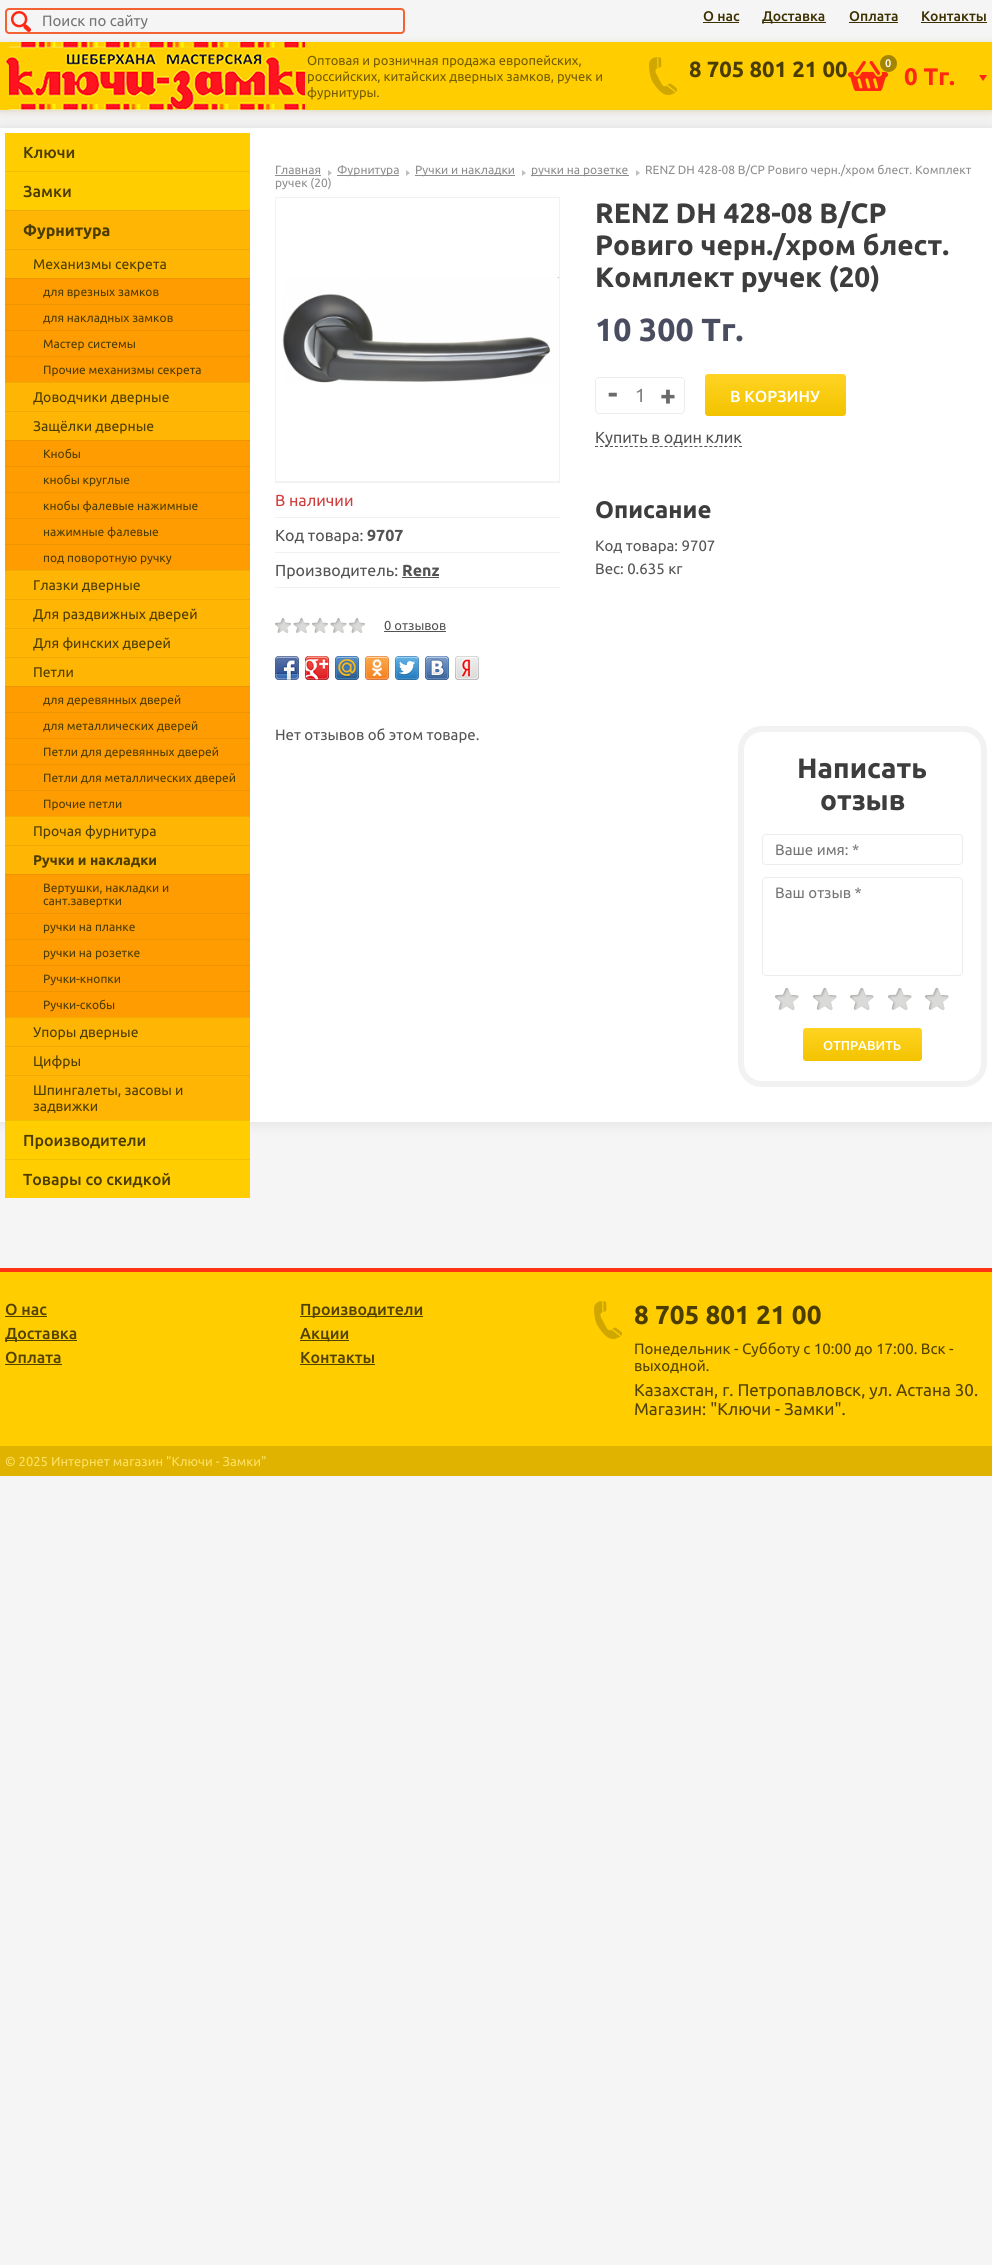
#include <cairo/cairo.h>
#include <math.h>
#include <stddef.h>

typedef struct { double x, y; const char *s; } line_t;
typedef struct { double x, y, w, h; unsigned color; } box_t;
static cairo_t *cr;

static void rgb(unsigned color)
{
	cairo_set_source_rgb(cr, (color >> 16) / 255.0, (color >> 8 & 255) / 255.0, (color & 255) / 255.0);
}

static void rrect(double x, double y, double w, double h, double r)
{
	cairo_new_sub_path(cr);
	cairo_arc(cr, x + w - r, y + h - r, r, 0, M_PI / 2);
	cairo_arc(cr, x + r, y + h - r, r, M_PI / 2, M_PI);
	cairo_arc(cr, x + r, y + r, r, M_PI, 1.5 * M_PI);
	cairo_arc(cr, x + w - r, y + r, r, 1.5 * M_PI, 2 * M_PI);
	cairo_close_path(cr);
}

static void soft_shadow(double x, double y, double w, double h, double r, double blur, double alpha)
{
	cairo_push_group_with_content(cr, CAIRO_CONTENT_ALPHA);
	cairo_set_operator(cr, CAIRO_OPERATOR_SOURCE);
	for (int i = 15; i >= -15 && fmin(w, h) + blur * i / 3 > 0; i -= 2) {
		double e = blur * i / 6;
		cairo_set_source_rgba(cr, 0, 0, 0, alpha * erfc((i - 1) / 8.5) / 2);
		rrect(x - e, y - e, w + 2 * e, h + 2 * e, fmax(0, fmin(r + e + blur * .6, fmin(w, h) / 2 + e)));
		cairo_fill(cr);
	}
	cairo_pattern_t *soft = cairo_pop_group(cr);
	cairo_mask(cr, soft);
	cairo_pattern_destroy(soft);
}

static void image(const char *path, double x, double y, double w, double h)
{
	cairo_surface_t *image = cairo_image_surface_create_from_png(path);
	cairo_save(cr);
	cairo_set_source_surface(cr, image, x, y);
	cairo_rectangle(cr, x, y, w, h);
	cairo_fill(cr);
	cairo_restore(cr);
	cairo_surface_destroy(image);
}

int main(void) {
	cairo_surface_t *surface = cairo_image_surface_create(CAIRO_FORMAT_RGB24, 992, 2265);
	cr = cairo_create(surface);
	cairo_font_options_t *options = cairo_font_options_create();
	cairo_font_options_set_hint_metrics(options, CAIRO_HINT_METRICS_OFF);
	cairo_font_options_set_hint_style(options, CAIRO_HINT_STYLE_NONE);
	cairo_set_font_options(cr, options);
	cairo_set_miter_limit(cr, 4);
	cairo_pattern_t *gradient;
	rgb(0xf5f5f5);
	cairo_paint(cr);
	rgb(0x765f00);
	soft_shadow(0, 44, 992, 68, 0, 4, 0.2);
	rrect(6, 9, 398, 24, 3);
	rgb(0xf46234);
	cairo_stroke(cr);
	image("img/1.png", 11, 11, 20, 21);
	{
		static const box_t items[] = {
			{703, 22, 36, 1, 0x3c3000},
			{762, 22, 64, 1, 0x3c3000},
			{849, 22, 49, 1, 0x3c3000},
			{921, 22, 66, 1, 0x3c3000},
			{0, 42, 992, 68, 0xffcd00},
		};
		for (size_t i = 0; i < sizeof items / sizeof *items; i++) {
			rgb(items[i].color);
			cairo_rectangle(cr, items[i].x, items[i].y, items[i].w, items[i].h);
			cairo_fill(cr);
		}
	}
	image("img/2.png", 5, 42, 300, 68);
	image("img/3.png", 649, 57, 28, 38);
	image("img/4.png", 848, 61, 40, 30);
	rgb(0xa58500);
	cairo_arc(cr, 888.5, 63.5, 8.5, 0, 2 * M_PI);
	cairo_fill(cr);
	rgb(0xff2714);
	cairo_new_path(cr);
	cairo_move_to(cr, 979, 75);
	cairo_line_to(cr, 987, 75);
	cairo_line_to(cr, 983, 81);
	cairo_close_path(cr);
	cairo_fill(cr);
	rgb(0x000000);
	soft_shadow(0, 128, 992, 994, 0, 7, 0.1);
	{
		static const box_t items[] = {
			{0, 128, 992, 994, 0xffffff},
			{5, 133, 245, 1065, 0xffcd00},
			{5, 171, 245, 1, 0xf0c100},
			{5, 211, 245, 38, 0xffb503},
			{5, 210, 245, 1, 0xf0aa03},
			{5, 250, 245, 870, 0xffb503},
			{5, 249, 245, 1, 0xf0aa03},
			{5, 279, 245, 103, 0xff9c01},
			{5, 278, 245, 1, 0xf09301},
			{5, 304, 245, 1, 0xf09301},
			{5, 330, 245, 1, 0xf09301},
			{5, 356, 245, 1, 0xf09301},
			{5, 382, 245, 1, 0xf0aa03},
			{5, 411, 245, 1, 0xf0aa03},
			{5, 441, 245, 129, 0xff9c01},
			{5, 440, 245, 1, 0xf09301},
			{5, 466, 245, 1, 0xf09301},
			{5, 492, 245, 1, 0xf09301},
			{5, 518, 245, 1, 0xf09301},
			{5, 544, 245, 1, 0xf09301},
			{5, 570, 245, 1, 0xf0aa03},
			{5, 599, 245, 1, 0xf0aa03},
			{5, 628, 245, 1, 0xf0aa03},
			{5, 657, 245, 1, 0xf0aa03},
			{5, 687, 245, 129, 0xff9c01},
			{5, 686, 245, 1, 0xf09301},
			{5, 712, 245, 1, 0xf09301},
			{5, 738, 245, 1, 0xf09301},
			{5, 764, 245, 1, 0xf09301},
			{5, 790, 245, 1, 0xf09301},
			{5, 816, 245, 1, 0xf0aa03},
			{5, 845, 245, 1, 0xf0aa03},
			{5, 875, 245, 142, 0xff9c01},
			{5, 874, 245, 1, 0xf09301},
			{5, 913, 245, 1, 0xf09301},
			{5, 939, 245, 1, 0xf09301},
			{5, 965, 245, 1, 0xf09301},
			{5, 991, 245, 1, 0xf09301},
			{5, 1017, 245, 1, 0xf0aa03},
			{5, 1046, 245, 1, 0xf0aa03},
			{5, 1075, 245, 1, 0xf0aa03},
			{5, 1120, 245, 1, 0xf0c100},
			{5, 1159, 245, 1, 0xf0c100},
			{275, 175, 46, 1, 0x8e8e8e},
		};
		for (size_t i = 0; i < sizeof items / sizeof *items; i++) {
			rgb(items[i].color);
			cairo_rectangle(cr, items[i].x, items[i].y, items[i].w, items[i].h);
			cairo_fill(cr);
		}
	}
	rgb(0xbfbfbf);
	cairo_new_path(cr);
	cairo_move_to(cr, 328, 176);
	cairo_line_to(cr, 328, 170);
	cairo_line_to(cr, 332, 173);
	cairo_close_path(cr);
	cairo_fill(cr);
	rgb(0x8e8e8e);
	cairo_rectangle(cr, 337, 175, 62, 1);
	cairo_fill(cr);
	rgb(0xbfbfbf);
	cairo_new_path(cr);
	cairo_move_to(cr, 406, 176);
	cairo_line_to(cr, 406, 170);
	cairo_line_to(cr, 410, 173);
	cairo_close_path(cr);
	cairo_fill(cr);
	rgb(0x8e8e8e);
	cairo_rectangle(cr, 415, 175, 100, 1);
	cairo_fill(cr);
	rgb(0xbfbfbf);
	cairo_new_path(cr);
	cairo_move_to(cr, 522, 176);
	cairo_line_to(cr, 522, 170);
	cairo_line_to(cr, 526, 173);
	cairo_close_path(cr);
	cairo_fill(cr);
	rgb(0x8e8e8e);
	cairo_rectangle(cr, 531, 175, 98, 1);
	cairo_fill(cr);
	rgb(0xbfbfbf);
	cairo_new_path(cr);
	cairo_move_to(cr, 636, 176);
	cairo_line_to(cr, 636, 170);
	cairo_line_to(cr, 640, 173);
	cairo_close_path(cr);
	cairo_fill(cr);
	cairo_rectangle(cr, 275.5, 197.5, 284, 284);
	rgb(0xf2f2f2);
	cairo_set_line_width(cr, 1);
	cairo_stroke(cr);
	image("img/5.png", 282, 277, 277, 106);
	{
		static const box_t items[] = {
			{275, 587, 285, 1, 0xf2f2f2},
			{275, 482, 285, 1, 0xf2f2f2},
			{275, 517, 285, 1, 0xf2f2f2},
			{275, 552, 285, 1, 0xf2f2f2},
			{402, 577, 37, 1, 0x535353},
		};
		for (size_t i = 0; i < sizeof items / sizeof *items; i++) {
			rgb(items[i].color);
			cairo_rectangle(cr, items[i].x, items[i].y, items[i].w, items[i].h);
			cairo_fill(cr);
		}
	}
	image("img/6.png", 275, 618, 90, 15);
	cairo_rectangle(cr, 384, 631, 62, 1);
	cairo_fill(cr);
	image("img/7.png", 275, 656, 24, 24);
	image("img/8.png", 305, 656, 24, 24);
	image("img/9.png", 335, 656, 24, 24);
	image("img/10.png", 365, 656, 24, 24);
	image("img/11.png", 395, 656, 24, 24);
	image("img/12.png", 425, 656, 24, 24);
	image("img/13.png", 455, 656, 24, 24);
	rrect(595.5, 377.5, 89, 36, 3.5);
	rgb(0xececec);
	cairo_stroke(cr);
	gradient = cairo_pattern_create_linear(776, 374, 776, 416);
	cairo_pattern_add_color_stop_rgba(gradient, 0, 1, 0.831, 0.133, 1);
	cairo_pattern_add_color_stop_rgba(gradient, 1, 0.953, 0.765, 0, 1);
	cairo_set_source(cr, gradient);
	cairo_pattern_destroy(gradient);
	rrect(705, 374, 141, 42, 3);
	cairo_fill(cr);
	cairo_new_path(cr);
	cairo_move_to(cr, 595, 446.5);
	cairo_line_to(cr, 742, 446.5);
	rgb(0x535353);
	cairo_set_dash(cr, (double[]){3, 1.97}, 2, 0);
	cairo_stroke(cr);
	rrect(741, 729, 243, 355, 21);
	rgb(0xf2f2f2);
	cairo_set_line_width(cr, 6);
	cairo_set_dash(cr, NULL, 0, 0);
	cairo_stroke(cr);
	rrect(762.5, 834.5, 200, 30, 3.5);
	rgb(0xececec);
	cairo_set_line_width(cr, 1);
	cairo_stroke(cr);
	rrect(762.5, 877.5, 200, 98, 3.5);
	cairo_stroke(cr);
	image("img/14.png", 775, 988, 24, 22);
	image("img/14.png", 813, 988, 24, 22);
	image("img/14.png", 850, 988, 24, 22);
	image("img/14.png", 888, 988, 24, 22);
	image("img/14.png", 925, 988, 24, 22);
	gradient = cairo_pattern_create_linear(863, 1028, 863, 1061);
	cairo_pattern_add_color_stop_rgba(gradient, 0, 1, 0.831, 0.133, 1);
	cairo_pattern_add_color_stop_rgba(gradient, 1, 0.953, 0.765, 0, 1);
	cairo_set_source(cr, gradient);
	cairo_pattern_destroy(gradient);
	rrect(803, 1028, 119, 33, 3);
	cairo_fill(cr);
	{
		static const box_t items[] = {
			{0, 1272, 992, 174, 0xffcd00},
			{0, 1268, 992, 4, 0xff3212},
			{5, 1316, 42, 1, 0x524200},
			{5, 1340, 72, 1, 0x524200},
			{5, 1364, 57, 1, 0x524200},
			{300, 1316, 123, 1, 0x524200},
			{300, 1340, 49, 1, 0x524200},
			{300, 1364, 75, 1, 0x524200},
		};
		for (size_t i = 0; i < sizeof items / sizeof *items; i++) {
			rgb(items[i].color);
			cairo_rectangle(cr, items[i].x, items[i].y, items[i].w, items[i].h);
			cairo_fill(cr);
		}
	}
	image("img/3.png", 594, 1301, 28, 38);
	rgb(0xdfb300);
	cairo_rectangle(cr, 0, 1446, 992, 30);
	cairo_fill(cr);
	cairo_select_font_face(cr, "Ubuntu", CAIRO_FONT_SLANT_NORMAL, CAIRO_FONT_WEIGHT_NORMAL);
	cairo_set_font_size(cr, 15);
	rgb(0x757575);
	cairo_move_to(cr, 42, 26);
	cairo_show_text(cr, "Поиск по сайту");
	cairo_select_font_face(cr, "Ubuntu Medium", CAIRO_FONT_SLANT_NORMAL, CAIRO_FONT_WEIGHT_NORMAL);
	cairo_set_font_size(cr, 14);
	rgb(0x3c3000);
	{
		static const line_t items[] = {
			{703, 21, "О нас"},
			{762, 21, "Доставка"},
			{849, 21, "Оплата"},
			{921, 21, "Контакты"},
		};
		for (size_t i = 0; i < sizeof items / sizeof *items; i++) {
			cairo_move_to(cr, items[i].x, items[i].y);
			cairo_show_text(cr, items[i].s);
		}
	}
	cairo_select_font_face(cr, "Ubuntu", CAIRO_FONT_SLANT_NORMAL, CAIRO_FONT_WEIGHT_NORMAL);
	cairo_set_font_size(cr, 13);
	rgb(0x725c00);
	{
		static const line_t items[] = {
			{307, 65, "Оптовая и розничная продажа европейских,"},
			{307, 81, "российских, китайских дверных замков, ручек и"},
			{307, 97, "фурнитуры."},
		};
		for (size_t i = 0; i < sizeof items / sizeof *items; i++) {
			cairo_move_to(cr, items[i].x, items[i].y);
			cairo_show_text(cr, items[i].s);
		}
	}
	cairo_select_font_face(cr, "Ubuntu", CAIRO_FONT_SLANT_NORMAL, CAIRO_FONT_WEIGHT_BOLD);
	cairo_set_font_size(cr, 22);
	rgb(0x4b3c00);
	cairo_move_to(cr, 689, 77);
	cairo_show_text(cr, "8 705 801 21 00");
	cairo_select_font_face(cr, "Ubuntu Medium", CAIRO_FONT_SLANT_NORMAL, CAIRO_FONT_WEIGHT_NORMAL);
	cairo_set_font_size(cr, 11);
	rgb(0xffffff);
	cairo_move_to(cr, 885, 67);
	cairo_show_text(cr, "0");
	cairo_select_font_face(cr, "Ubuntu", CAIRO_FONT_SLANT_NORMAL, CAIRO_FONT_WEIGHT_BOLD);
	cairo_set_font_size(cr, 24);
	rgb(0xff2714);
	cairo_move_to(cr, 904, 85);
	cairo_show_text(cr, "0 Тг.");
	cairo_select_font_face(cr, "Ubuntu Medium", CAIRO_FONT_SLANT_NORMAL, CAIRO_FONT_WEIGHT_NORMAL);
	cairo_set_font_size(cr, 16);
	rgb(0x4b3c00);
	cairo_move_to(cr, 23, 158);
	cairo_show_text(cr, "Ключи");
	cairo_move_to(cr, 23, 197);
	cairo_show_text(cr, "Замки");
	cairo_select_font_face(cr, "Ubuntu", CAIRO_FONT_SLANT_NORMAL, CAIRO_FONT_WEIGHT_BOLD);
	cairo_move_to(cr, 23, 236);
	cairo_show_text(cr, "Фурнитура");
	cairo_select_font_face(cr, "Ubuntu", CAIRO_FONT_SLANT_NORMAL, CAIRO_FONT_WEIGHT_NORMAL);
	cairo_set_font_size(cr, 14);
	cairo_move_to(cr, 33, 269);
	cairo_show_text(cr, "Механизмы секрета");
	cairo_set_font_size(cr, 12);
	{
		static const line_t items[] = {
			{43, 296, "для врезных замков"},
			{43, 322, "для накладных замков"},
			{43, 348, "Мастер системы"},
			{43, 374, "Прочие механизмы секрета"},
		};
		for (size_t i = 0; i < sizeof items / sizeof *items; i++) {
			cairo_move_to(cr, items[i].x, items[i].y);
			cairo_show_text(cr, items[i].s);
		}
	}
	cairo_set_font_size(cr, 14);
	cairo_move_to(cr, 33, 402);
	cairo_show_text(cr, "Доводчики дверные");
	cairo_move_to(cr, 33, 431);
	cairo_show_text(cr, "Защёлки дверные");
	cairo_set_font_size(cr, 12);
	{
		static const line_t items[] = {
			{43, 458, "Кнобы"},
			{43, 484, "кнобы круглые"},
			{43, 510, "кнобы фалевые нажимные"},
			{43, 536, "нажимные фалевые"},
			{43, 562, "под поворотную ручку"},
		};
		for (size_t i = 0; i < sizeof items / sizeof *items; i++) {
			cairo_move_to(cr, items[i].x, items[i].y);
			cairo_show_text(cr, items[i].s);
		}
	}
	cairo_set_font_size(cr, 14);
	{
		static const line_t items[] = {
			{33, 590, "Глазки дверные"},
			{33, 619, "Для раздвижных дверей"},
			{33, 648, "Для финских дверей"},
			{33, 677, "Петли"},
		};
		for (size_t i = 0; i < sizeof items / sizeof *items; i++) {
			cairo_move_to(cr, items[i].x, items[i].y);
			cairo_show_text(cr, items[i].s);
		}
	}
	cairo_set_font_size(cr, 12);
	{
		static const line_t items[] = {
			{43, 704, "для деревянных дверей"},
			{43, 730, "для металлических дверей"},
			{43, 756, "Петли для деревянных дверей"},
			{43, 782, "Петли для металлических дверей"},
			{43, 808, "Прочие петли"},
		};
		for (size_t i = 0; i < sizeof items / sizeof *items; i++) {
			cairo_move_to(cr, items[i].x, items[i].y);
			cairo_show_text(cr, items[i].s);
		}
	}
	cairo_set_font_size(cr, 14);
	cairo_move_to(cr, 33, 836);
	cairo_show_text(cr, "Прочая фурнитура");
	cairo_select_font_face(cr, "Ubuntu", CAIRO_FONT_SLANT_NORMAL, CAIRO_FONT_WEIGHT_BOLD);
	cairo_move_to(cr, 33, 865);
	cairo_show_text(cr, "Ручки и накладки");
	cairo_select_font_face(cr, "Ubuntu", CAIRO_FONT_SLANT_NORMAL, CAIRO_FONT_WEIGHT_NORMAL);
	cairo_set_font_size(cr, 12);
	{
		static const line_t items[] = {
			{43, 892, "Вертушки, накладки и"},
			{43, 905, "сант.завертки"},
			{43, 931, "ручки на планке"},
			{43, 957, "ручки на розетке"},
			{43, 983, "Ручки-кнопки"},
			{43, 1009, "Ручки-скобы"},
		};
		for (size_t i = 0; i < sizeof items / sizeof *items; i++) {
			cairo_move_to(cr, items[i].x, items[i].y);
			cairo_show_text(cr, items[i].s);
		}
	}
	cairo_set_font_size(cr, 14);
	{
		static const line_t items[] = {
			{33, 1037, "Упоры дверные"},
			{33, 1066, "Цифры"},
			{33, 1095, "Шпингалеты, засовы и"},
			{33, 1111, "задвижки"},
		};
		for (size_t i = 0; i < sizeof items / sizeof *items; i++) {
			cairo_move_to(cr, items[i].x, items[i].y);
			cairo_show_text(cr, items[i].s);
		}
	}
	cairo_select_font_face(cr, "Ubuntu Medium", CAIRO_FONT_SLANT_NORMAL, CAIRO_FONT_WEIGHT_NORMAL);
	cairo_set_font_size(cr, 16);
	cairo_move_to(cr, 23, 1146);
	cairo_show_text(cr, "Производители");
	cairo_move_to(cr, 23, 1185);
	cairo_show_text(cr, "Товары со скидкой");
	cairo_select_font_face(cr, "Ubuntu", CAIRO_FONT_SLANT_NORMAL, CAIRO_FONT_WEIGHT_NORMAL);
	cairo_set_font_size(cr, 12);
	rgb(0x8e8e8e);
	{
		static const line_t items[] = {
			{275, 174, "Главная"},
			{337, 174, "Фурнитура"},
			{415, 174, "Ручки и накладки"},
			{531, 174, "ручки на розетке"},
			{645, 174, "RENZ DH 428-08 B/CP Ровиго черн./хром блест. Комплект"},
			{275, 187, "ручек (20)"},
		};
		for (size_t i = 0; i < sizeof items / sizeof *items; i++) {
			cairo_move_to(cr, items[i].x, items[i].y);
			cairo_show_text(cr, items[i].s);
		}
	}
	cairo_set_font_size(cr, 16);
	rgb(0xcf3d3d);
	cairo_move_to(cr, 275, 506);
	cairo_show_text(cr, "В наличии");
	rgb(0x535353);
	cairo_move_to(cr, 275, 541);
	cairo_show_text(cr, "Код товара:");
	cairo_select_font_face(cr, "Ubuntu", CAIRO_FONT_SLANT_NORMAL, CAIRO_FONT_WEIGHT_BOLD);
	cairo_move_to(cr, 367, 541);
	cairo_show_text(cr, "9707");
	cairo_select_font_face(cr, "Ubuntu", CAIRO_FONT_SLANT_NORMAL, CAIRO_FONT_WEIGHT_NORMAL);
	cairo_move_to(cr, 275, 576);
	cairo_show_text(cr, "Производитель:");
	cairo_select_font_face(cr, "Ubuntu", CAIRO_FONT_SLANT_NORMAL, CAIRO_FONT_WEIGHT_BOLD);
	cairo_move_to(cr, 402, 576);
	cairo_show_text(cr, "Renz");
	cairo_select_font_face(cr, "Ubuntu", CAIRO_FONT_SLANT_NORMAL, CAIRO_FONT_WEIGHT_NORMAL);
	cairo_set_font_size(cr, 13);
	cairo_move_to(cr, 384, 630);
	cairo_show_text(cr, "0 отзывов");
	cairo_select_font_face(cr, "Ubuntu", CAIRO_FONT_SLANT_NORMAL, CAIRO_FONT_WEIGHT_BOLD);
	cairo_set_font_size(cr, 28);
	rgb(0x3d3d3d);
	{
		static const line_t items[] = {
			{595, 223, "RENZ DH 428-08 B/CP"},
			{595, 255, "Ровиго черн./хром блест."},
			{595, 287, "Комплект ручек (20)"},
		};
		for (size_t i = 0; i < sizeof items / sizeof *items; i++) {
			cairo_move_to(cr, items[i].x, items[i].y);
			cairo_show_text(cr, items[i].s);
		}
	}
	cairo_set_font_size(cr, 32);
	rgb(0x4a4c60);
	cairo_move_to(cr, 595, 341);
	cairo_show_text(cr, "10 300 Тг.");
	cairo_set_font_size(cr, 28);
	rgb(0x6b6b6b);
	cairo_move_to(cr, 608, 403);
	cairo_show_text(cr, "-");
	cairo_select_font_face(cr, "Ubuntu", CAIRO_FONT_SLANT_NORMAL, CAIRO_FONT_WEIGHT_NORMAL);
	cairo_set_font_size(cr, 19);
	rgb(0x808080);
	cairo_move_to(cr, 635, 402);
	cairo_show_text(cr, "1");
	cairo_select_font_face(cr, "Ubuntu", CAIRO_FONT_SLANT_NORMAL, CAIRO_FONT_WEIGHT_BOLD);
	cairo_set_font_size(cr, 28);
	rgb(0x6b6b6b);
	cairo_move_to(cr, 660, 405);
	cairo_show_text(cr, "+");
	cairo_select_font_face(cr, "Ubuntu Medium", CAIRO_FONT_SLANT_NORMAL, CAIRO_FONT_WEIGHT_NORMAL);
	cairo_set_font_size(cr, 16);
	rgb(0xffffff);
	cairo_move_to(cr, 730, 402);
	cairo_show_text(cr, "В КОРЗИНУ");
	cairo_select_font_face(cr, "Ubuntu", CAIRO_FONT_SLANT_NORMAL, CAIRO_FONT_WEIGHT_NORMAL);
	rgb(0x535353);
	cairo_move_to(cr, 595, 443);
	cairo_show_text(cr, "Купить в один клик");
	cairo_select_font_face(cr, "Ubuntu", CAIRO_FONT_SLANT_NORMAL, CAIRO_FONT_WEIGHT_BOLD);
	cairo_set_font_size(cr, 24);
	rgb(0x3d3d3d);
	cairo_move_to(cr, 595, 518);
	cairo_show_text(cr, "Описание");
	cairo_select_font_face(cr, "Ubuntu", CAIRO_FONT_SLANT_NORMAL, CAIRO_FONT_WEIGHT_NORMAL);
	cairo_set_font_size(cr, 15);
	rgb(0x535353);
	{
		static const line_t items[] = {
			{595, 551, "Код товара: 9707"},
			{595, 574, "Вес: 0.635 кг"},
			{275, 740, "Нет отзывов об этом товаре."},
		};
		for (size_t i = 0; i < sizeof items / sizeof *items; i++) {
			cairo_move_to(cr, items[i].x, items[i].y);
			cairo_show_text(cr, items[i].s);
		}
	}
	cairo_select_font_face(cr, "Ubuntu", CAIRO_FONT_SLANT_NORMAL, CAIRO_FONT_WEIGHT_BOLD);
	cairo_set_font_size(cr, 28);
	rgb(0x3d3d3d);
	cairo_move_to(cr, 797, 778);
	cairo_show_text(cr, "Написать");
	cairo_move_to(cr, 820, 810);
	cairo_show_text(cr, "отзыв");
	cairo_select_font_face(cr, "Ubuntu", CAIRO_FONT_SLANT_NORMAL, CAIRO_FONT_WEIGHT_NORMAL);
	cairo_set_font_size(cr, 15);
	rgb(0x757575);
	cairo_move_to(cr, 775, 855);
	cairo_show_text(cr, "Ваше имя: *");
	cairo_move_to(cr, 775, 898);
	cairo_show_text(cr, "Ваш отзыв *");
	cairo_select_font_face(cr, "Ubuntu Medium", CAIRO_FONT_SLANT_NORMAL, CAIRO_FONT_WEIGHT_NORMAL);
	cairo_set_font_size(cr, 13);
	rgb(0xffffff);
	cairo_move_to(cr, 823, 1050);
	cairo_show_text(cr, "ОТПРАВИТЬ");
	cairo_set_font_size(cr, 16);
	rgb(0x524200);
	{
		static const line_t items[] = {
			{5, 1315, "О нас"},
			{5, 1339, "Доставка"},
			{5, 1363, "Оплата"},
			{300, 1315, "Производители"},
			{300, 1339, "Акции"},
			{300, 1363, "Контакты"},
		};
		for (size_t i = 0; i < sizeof items / sizeof *items; i++) {
			cairo_move_to(cr, items[i].x, items[i].y);
			cairo_show_text(cr, items[i].s);
		}
	}
	cairo_select_font_face(cr, "Ubuntu", CAIRO_FONT_SLANT_NORMAL, CAIRO_FONT_WEIGHT_BOLD);
	cairo_set_font_size(cr, 26);
	rgb(0x4b3c00);
	cairo_move_to(cr, 634, 1324);
	cairo_show_text(cr, "8 705 801 21 00");
	cairo_select_font_face(cr, "Ubuntu", CAIRO_FONT_SLANT_NORMAL, CAIRO_FONT_WEIGHT_NORMAL);
	cairo_set_font_size(cr, 15);
	rgb(0x524200);
	cairo_move_to(cr, 634, 1354);
	cairo_show_text(cr, "Понедельник - Субботу с 10:00 до 17:00. Вск -");
	cairo_move_to(cr, 634, 1371);
	cairo_show_text(cr, "выходной.");
	cairo_set_font_size(cr, 17);
	cairo_move_to(cr, 634, 1396);
	cairo_show_text(cr, "Казахстан, г. Петропавловск, ул. Астана 30.");
	cairo_move_to(cr, 634, 1415);
	cairo_show_text(cr, "Магазин: \"Ключи - Замки\".");
	cairo_set_font_size(cr, 13);
	rgb(0xffe063);
	cairo_move_to(cr, 5, 1466);
	cairo_show_text(cr, "© 2025 Интернет магазин \"Ключи - Замки\"");
	cairo_surface_write_to_png(surface, "page.png");
	cairo_font_options_destroy(options);
	cairo_destroy(cr);
	cairo_surface_destroy(surface);
	return 0;
}
